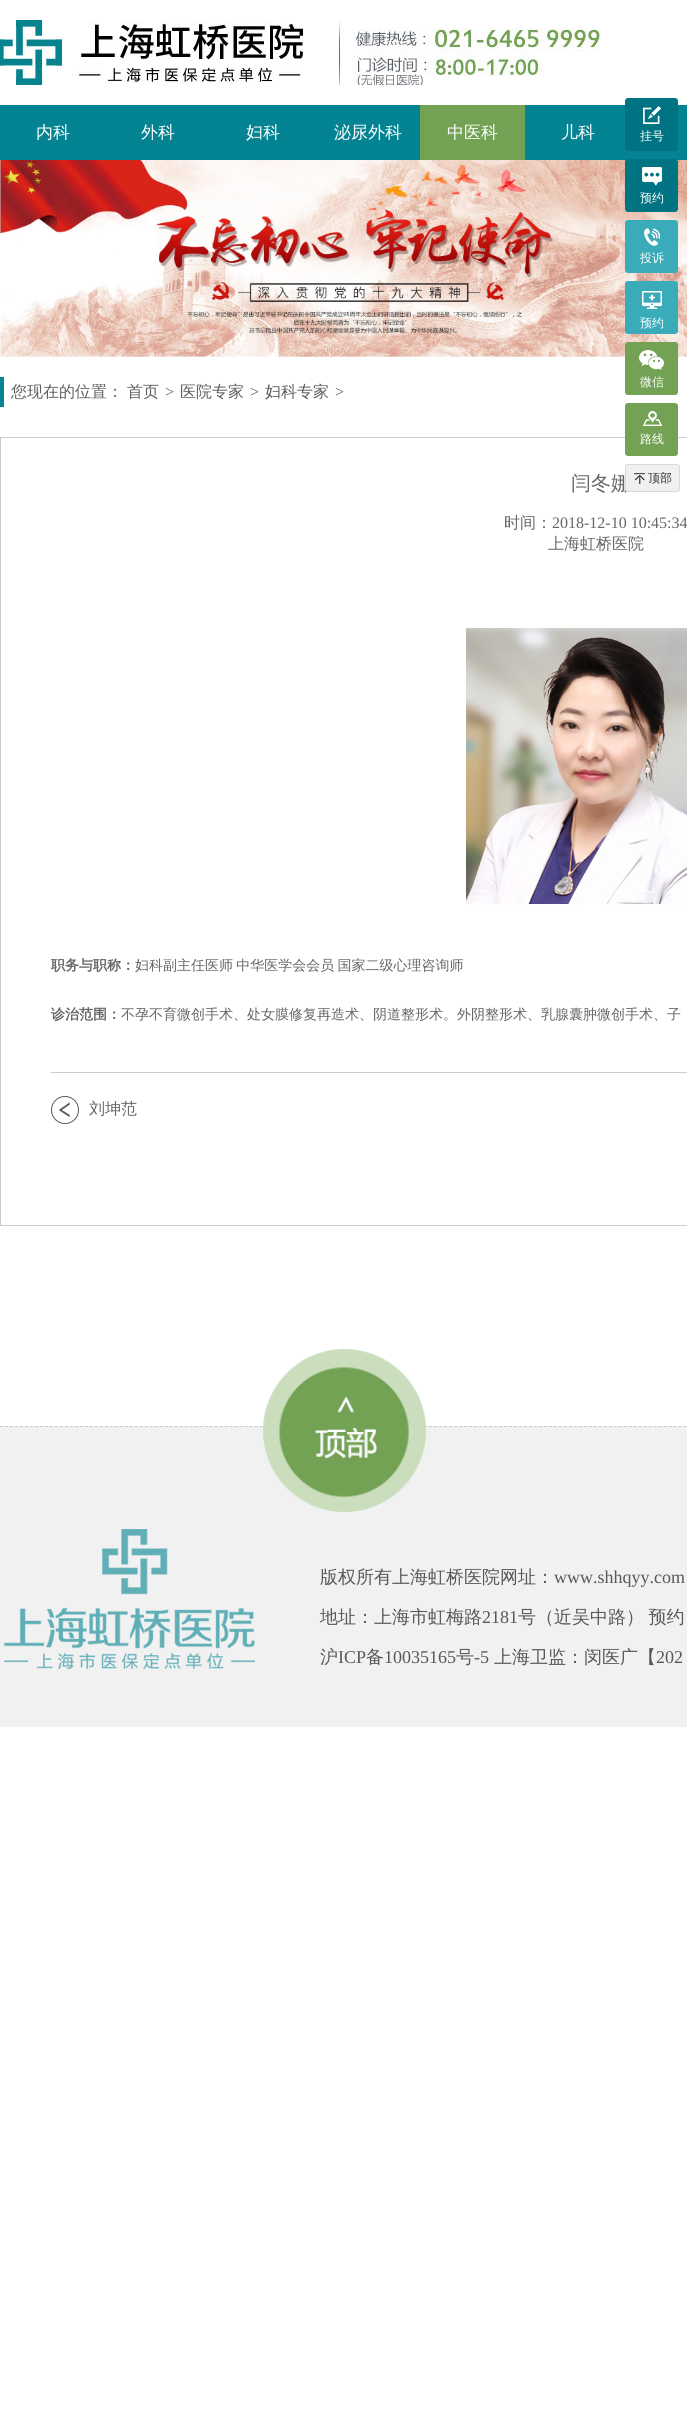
#include <cairo/cairo.h>
#include <math.h>
#include <stddef.h>

typedef struct { double x, y; const char *s; } line_t;
static cairo_t *cr;

static void rgb(unsigned color)
{
	cairo_set_source_rgb(cr, (color >> 16) / 255.0, (color >> 8 & 255) / 255.0, (color & 255) / 255.0);
}

static void tracked(double x, double y, const char *s, double letter, double word)
{
	cairo_move_to(cr, x, y);
	while (*s) {
		char ch[5] = {0};
		int n = 0;
		do ch[n++] = *s++; while ((*s & 0xC0) == 0x80);
		cairo_show_text(cr, ch);
		cairo_rel_move_to(cr, letter + word * (*ch == ' '), 0);
	}
}

static void rrect(double x, double y, double w, double h, double r)
{
	cairo_new_sub_path(cr);
	cairo_arc(cr, x + w - r, y + h - r, r, 0, M_PI / 2);
	cairo_arc(cr, x + r, y + h - r, r, M_PI / 2, M_PI);
	cairo_arc(cr, x + r, y + r, r, M_PI, 1.5 * M_PI);
	cairo_arc(cr, x + w - r, y + r, r, 1.5 * M_PI, 2 * M_PI);
	cairo_close_path(cr);
}

static void image(const char *path, double x, double y, double w, double h)
{
	cairo_surface_t *image = cairo_image_surface_create_from_png(path);
	cairo_save(cr);
	cairo_set_source_surface(cr, image, x, y);
	cairo_rectangle(cr, x, y, w, h);
	cairo_fill(cr);
	cairo_restore(cr);
	cairo_surface_destroy(image);
}

int main(void) {
	cairo_surface_t *surface = cairo_image_surface_create(CAIRO_FORMAT_RGB24, 687, 2411);
	cr = cairo_create(surface);
	cairo_font_options_t *options = cairo_font_options_create();
	cairo_font_options_set_hint_metrics(options, CAIRO_HINT_METRICS_OFF);
	cairo_font_options_set_hint_style(options, CAIRO_HINT_STYLE_NONE);
	cairo_set_font_options(cr, options);
	cairo_set_miter_limit(cr, 4);
	rgb(0xffffff);
	cairo_paint(cr);
	image("img/1.png", 0, 20, 600, 65);
	rgb(0x048492);
	cairo_rectangle(cr, 0, 105, 687, 55);
	cairo_fill(cr);
	rgb(0x73a254);
	cairo_rectangle(cr, 420, 105, 105, 55);
	cairo_fill(cr);
	rgb(0x007483);
	rrect(625, 98, 53, 53, 3);
	cairo_fill(cr);
	image("img/2.png", 643, 106, 18, 18);
	image("img/9.png", 0, 160, 687, 197);
	rrect(625, 159, 53, 53, 3);
	cairo_fill(cr);
	image("img/3.png", 642, 167, 20, 19);
	rgb(0x3aabb8);
	rrect(625, 220, 53, 53, 3);
	cairo_fill(cr);
	image("img/4.png", 644, 228, 16, 18);
	rrect(625, 281, 53, 53, 3);
	cairo_fill(cr);
	image("img/5.png", 642, 291, 20, 18);
	rgb(0x73a254);
	rrect(625, 342, 53, 53, 3);
	cairo_fill(cr);
	image("img/6.png", 639, 350, 25, 20);
	cairo_rectangle(cr, 0.5, 437.5, 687, 788);
	rgb(0xcccccc);
	cairo_set_line_width(cr, 1);
	cairo_stroke(cr);
	rgb(0x73a254);
	rrect(625, 403, 53, 53, 3);
	cairo_fill(cr);
	image("img/7.png", 643, 411, 19, 15);
	rgb(0x048492);
	cairo_rectangle(cr, 0, 377, 4, 30);
	cairo_fill(cr);
	rgb(0xcccccc);
	cairo_rectangle(cr, 51, 1072, 636, 1);
	cairo_fill(cr);
	image("img/10.png", 466, 628, 221, 277);
	image("img/11.png", 51, 1096, 28, 28);
	rgb(0xf1f1f1);
	cairo_rectangle(cr, 0, 1426, 687, 301);
	cairo_fill(cr);
	cairo_new_path(cr);
	cairo_move_to(cr, 0, 1426.5);
	cairo_line_to(cr, 687, 1426.5);
	rgb(0xcccccc);
	cairo_set_dash(cr, (double[]){3, 1.99}, 2, 0);
	cairo_stroke(cr);
	image("img/12.png", 263, 1349, 163, 163);
	image("img/13.png", 4, 1529, 251, 140);
	cairo_select_font_face(cr, "WenQuanYi Zen Hei Medium", CAIRO_FONT_SLANT_NORMAL, CAIRO_FONT_WEIGHT_NORMAL);
	cairo_set_font_size(cr, 17);
	rgb(0xffffff);
	{
		static const line_t items[] = {
			{36, 138, "内科"},
			{141, 138, "外科"},
			{246, 138, "妇科"},
			{334, 138, "泌尿外科"},
			{447, 138, "中医科"},
			{561, 138, "儿科"},
		};
		for (size_t i = 0; i < sizeof items / sizeof *items; i++) {
			cairo_move_to(cr, items[i].x, items[i].y);
			cairo_show_text(cr, items[i].s);
		}
	}
	cairo_set_font_size(cr, 12);
	{
		static const line_t items[] = {
			{640, 140, "挂号"},
			{640, 202, "预约"},
			{640, 262, "投诉"},
			{640, 327, "预约"},
			{640, 386, "微信"},
			{640, 443, "路线"},
		};
		for (size_t i = 0; i < sizeof items / sizeof *items; i++) {
			cairo_move_to(cr, items[i].x, items[i].y);
			cairo_show_text(cr, items[i].s);
		}
	}
	cairo_set_font_size(cr, 16);
	rgb(0x5e5e5e);
	cairo_move_to(cr, 11, 397);
	cairo_show_text(cr, "您现在的位置：");
	cairo_move_to(cr, 127, 397);
	cairo_show_text(cr, "首页");
	cairo_select_font_face(cr, "Liberation Serif", CAIRO_FONT_SLANT_NORMAL, CAIRO_FONT_WEIGHT_NORMAL);
	cairo_move_to(cr, 165, 397);
	cairo_show_text(cr, ">");
	cairo_select_font_face(cr, "WenQuanYi Zen Hei Medium", CAIRO_FONT_SLANT_NORMAL, CAIRO_FONT_WEIGHT_NORMAL);
	cairo_move_to(cr, 180, 397);
	cairo_show_text(cr, "医院专家");
	cairo_select_font_face(cr, "Liberation Serif", CAIRO_FONT_SLANT_NORMAL, CAIRO_FONT_WEIGHT_NORMAL);
	cairo_move_to(cr, 250, 397);
	cairo_show_text(cr, ">");
	cairo_select_font_face(cr, "WenQuanYi Zen Hei Medium", CAIRO_FONT_SLANT_NORMAL, CAIRO_FONT_WEIGHT_NORMAL);
	cairo_move_to(cr, 265, 397);
	cairo_show_text(cr, "妇科专家");
	cairo_select_font_face(cr, "Liberation Serif", CAIRO_FONT_SLANT_NORMAL, CAIRO_FONT_WEIGHT_NORMAL);
	cairo_move_to(cr, 335, 397);
	cairo_show_text(cr, ">");
	cairo_select_font_face(cr, "WenQuanYi Zen Hei Medium", CAIRO_FONT_SLANT_NORMAL, CAIRO_FONT_WEIGHT_NORMAL);
	cairo_set_font_size(cr, 20);
	rgb(0x666666);
	cairo_move_to(cr, 571, 490);
	cairo_show_text(cr, "闫冬娜");
	rgb(0xf0f0f0);
	rrect(625.5, 464.5, 54, 27, 2.5);
	cairo_fill_preserve(cr);
	rgb(0xd9d9d9);
	cairo_set_dash(cr, NULL, 0, 0);
	cairo_stroke(cr);
	image("img/8.png", 634, 473, 11, 11);
	cairo_set_font_size(cr, 12);
	rgb(0x333333);
	cairo_move_to(cr, 648, 482);
	cairo_show_text(cr, "顶部");
	cairo_set_font_size(cr, 16);
	rgb(0x666666);
	cairo_move_to(cr, 504, 528);
	cairo_show_text(cr, "时间：");
	cairo_select_font_face(cr, "Liberation Serif", CAIRO_FONT_SLANT_NORMAL, CAIRO_FONT_WEIGHT_NORMAL);
	cairo_move_to(cr, 552, 528);
	cairo_show_text(cr, "2018-12-10 10:45:34");
	cairo_select_font_face(cr, "WenQuanYi Zen Hei Medium", CAIRO_FONT_SLANT_NORMAL, CAIRO_FONT_WEIGHT_NORMAL);
	cairo_move_to(cr, 548, 549);
	cairo_show_text(cr, "上海虹桥医院");
	cairo_select_font_face(cr, "WenQuanYi Zen Hei", CAIRO_FONT_SLANT_NORMAL, CAIRO_FONT_WEIGHT_BOLD);
	cairo_set_font_size(cr, 14);
	cairo_move_to(cr, 51, 970);
	cairo_show_text(cr, "职务与职称：");
	cairo_select_font_face(cr, "WenQuanYi Zen Hei Medium", CAIRO_FONT_SLANT_NORMAL, CAIRO_FONT_WEIGHT_NORMAL);
	tracked(135, 970, "妇科副主任医师 中华医学会会员 国家二级心理咨询师", 0, -1);
	cairo_select_font_face(cr, "WenQuanYi Zen Hei", CAIRO_FONT_SLANT_NORMAL, CAIRO_FONT_WEIGHT_BOLD);
	cairo_move_to(cr, 51, 1019);
	cairo_show_text(cr, "诊治范围：");
	cairo_select_font_face(cr, "WenQuanYi Zen Hei Medium", CAIRO_FONT_SLANT_NORMAL, CAIRO_FONT_WEIGHT_NORMAL);
	cairo_move_to(cr, 121, 1019);
	cairo_show_text(cr, "不孕不育微创手术、处女膜修复再造术、阴道整形术。外阴整形术、乳腺囊肿微创手术、子");
	cairo_set_font_size(cr, 16);
	cairo_move_to(cr, 89, 1114);
	cairo_show_text(cr, "刘坤范");
	cairo_set_font_size(cr, 18);
	rgb(0x585858);
	cairo_move_to(cr, 320, 1583);
	cairo_show_text(cr, "版权所有上海虹桥医院网址：");
	cairo_select_font_face(cr, "Liberation Serif", CAIRO_FONT_SLANT_NORMAL, CAIRO_FONT_WEIGHT_NORMAL);
	cairo_move_to(cr, 554, 1583);
	cairo_show_text(cr, "www.shhqyy.com");
	cairo_select_font_face(cr, "WenQuanYi Zen Hei Medium", CAIRO_FONT_SLANT_NORMAL, CAIRO_FONT_WEIGHT_NORMAL);
	cairo_move_to(cr, 320, 1623);
	cairo_show_text(cr, "地址：上海市虹梅路");
	cairo_select_font_face(cr, "Liberation Serif", CAIRO_FONT_SLANT_NORMAL, CAIRO_FONT_WEIGHT_NORMAL);
	cairo_move_to(cr, 482, 1623);
	cairo_show_text(cr, "2181");
	cairo_select_font_face(cr, "WenQuanYi Zen Hei Medium", CAIRO_FONT_SLANT_NORMAL, CAIRO_FONT_WEIGHT_NORMAL);
	tracked(518, 1623, "号（近吴中路） 预约", 0, -1);
	cairo_move_to(cr, 320, 1663);
	cairo_show_text(cr, "沪");
	cairo_select_font_face(cr, "Liberation Serif", CAIRO_FONT_SLANT_NORMAL, CAIRO_FONT_WEIGHT_NORMAL);
	cairo_move_to(cr, 338, 1663);
	cairo_show_text(cr, "ICP");
	cairo_select_font_face(cr, "WenQuanYi Zen Hei Medium", CAIRO_FONT_SLANT_NORMAL, CAIRO_FONT_WEIGHT_NORMAL);
	cairo_move_to(cr, 366, 1663);
	cairo_show_text(cr, "备");
	cairo_select_font_face(cr, "Liberation Serif", CAIRO_FONT_SLANT_NORMAL, CAIRO_FONT_WEIGHT_NORMAL);
	cairo_move_to(cr, 384, 1663);
	cairo_show_text(cr, "10035165");
	cairo_select_font_face(cr, "WenQuanYi Zen Hei Medium", CAIRO_FONT_SLANT_NORMAL, CAIRO_FONT_WEIGHT_NORMAL);
	cairo_move_to(cr, 456, 1663);
	cairo_show_text(cr, "号");
	cairo_select_font_face(cr, "Liberation Serif", CAIRO_FONT_SLANT_NORMAL, CAIRO_FONT_WEIGHT_NORMAL);
	cairo_move_to(cr, 474, 1663);
	cairo_show_text(cr, "-5");
	cairo_select_font_face(cr, "WenQuanYi Zen Hei Medium", CAIRO_FONT_SLANT_NORMAL, CAIRO_FONT_WEIGHT_NORMAL);
	cairo_move_to(cr, 494, 1663);
	cairo_show_text(cr, "上海卫监：闵医广【");
	cairo_select_font_face(cr, "Liberation Serif", CAIRO_FONT_SLANT_NORMAL, CAIRO_FONT_WEIGHT_NORMAL);
	cairo_move_to(cr, 656, 1663);
	cairo_show_text(cr, "202");
	cairo_surface_write_to_png(surface, "page.png");
	cairo_font_options_destroy(options);
	cairo_destroy(cr);
	cairo_surface_destroy(surface);
	return 0;
}
